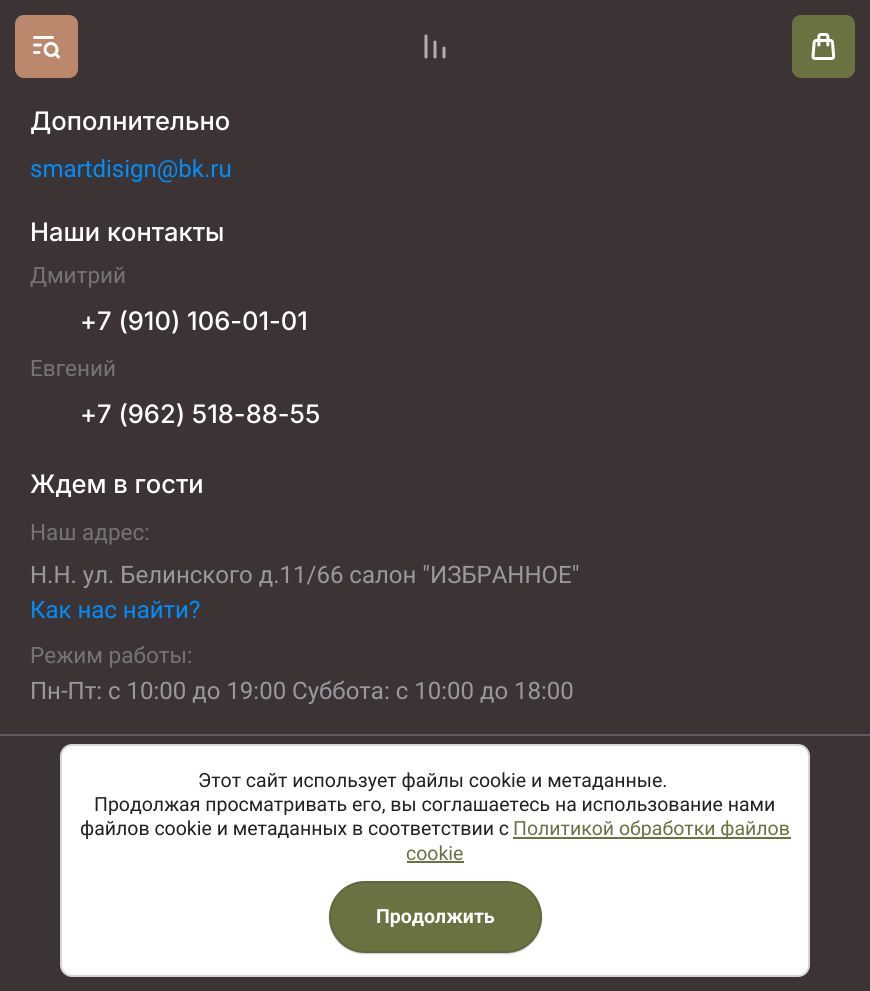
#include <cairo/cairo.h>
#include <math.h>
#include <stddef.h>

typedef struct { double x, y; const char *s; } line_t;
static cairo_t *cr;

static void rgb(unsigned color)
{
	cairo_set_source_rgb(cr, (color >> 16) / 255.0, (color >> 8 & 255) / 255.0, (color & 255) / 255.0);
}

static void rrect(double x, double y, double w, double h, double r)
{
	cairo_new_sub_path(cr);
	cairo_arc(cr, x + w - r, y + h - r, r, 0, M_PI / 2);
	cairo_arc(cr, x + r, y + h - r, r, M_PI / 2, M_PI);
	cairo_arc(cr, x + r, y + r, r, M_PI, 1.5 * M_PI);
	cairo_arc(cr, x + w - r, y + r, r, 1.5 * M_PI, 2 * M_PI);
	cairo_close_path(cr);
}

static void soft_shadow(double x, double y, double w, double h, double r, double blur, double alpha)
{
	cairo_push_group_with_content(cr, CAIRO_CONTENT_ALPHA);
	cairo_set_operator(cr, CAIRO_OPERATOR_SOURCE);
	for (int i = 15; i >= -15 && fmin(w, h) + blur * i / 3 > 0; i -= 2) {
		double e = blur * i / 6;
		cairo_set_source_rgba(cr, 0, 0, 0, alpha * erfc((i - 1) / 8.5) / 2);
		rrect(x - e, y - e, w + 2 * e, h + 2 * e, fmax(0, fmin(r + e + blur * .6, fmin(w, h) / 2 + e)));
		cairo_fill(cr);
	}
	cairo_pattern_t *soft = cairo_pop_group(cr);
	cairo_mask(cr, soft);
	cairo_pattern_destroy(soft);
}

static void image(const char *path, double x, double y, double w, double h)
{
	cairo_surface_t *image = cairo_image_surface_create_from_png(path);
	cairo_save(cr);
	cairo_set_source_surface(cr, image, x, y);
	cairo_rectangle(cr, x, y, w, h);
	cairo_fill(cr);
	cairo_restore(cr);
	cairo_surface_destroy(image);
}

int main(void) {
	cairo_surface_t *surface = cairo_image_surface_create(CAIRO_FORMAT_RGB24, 870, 991);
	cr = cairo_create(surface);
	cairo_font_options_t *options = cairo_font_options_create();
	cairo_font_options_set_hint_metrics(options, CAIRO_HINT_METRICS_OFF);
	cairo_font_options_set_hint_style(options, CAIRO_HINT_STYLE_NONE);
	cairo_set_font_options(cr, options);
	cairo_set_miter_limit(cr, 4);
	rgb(0x3c3434);
	cairo_paint(cr);
	rgb(0xbb886c);
	rrect(15, 15, 63, 63, 9);
	cairo_fill(cr);
	image("img/1.png", 33, 36, 27, 23);
	image("img/2.png", 424, 34, 22, 25);
	rgb(0x6a7241);
	rrect(792, 15, 63, 63, 9);
	cairo_fill(cr);
	image("img/3.png", 811, 33, 25, 27);
	rgb(0x5f5a5f);
	cairo_rectangle(cr, 0, 734, 870, 2);
	cairo_fill(cr);
	rgb(0xffffff);
	rrect(61, 745, 748, 231, 11);
	cairo_fill_preserve(cr);
	rgb(0xd6d6d6);
	cairo_stroke(cr);
	rgb(0x6a7241);
	cairo_rectangle(cr, 513, 837, 278, 2);
	cairo_fill(cr);
	cairo_rectangle(cr, 407, 861, 57, 2);
	cairo_fill(cr);
	rgb(0x000000);
	soft_shadow(329, 882, 213, 72, 36, 0.5, 0.2);
	rgb(0x6a7241);
	rrect(329, 881, 213, 72, 36);
	cairo_fill(cr);
	rrect(330, 882, 211, 70, 35);
	cairo_set_source_rgba(cr, 0, 0, 0, 0.1);
	cairo_stroke(cr);
	cairo_select_font_face(cr, "Inter Medium", CAIRO_FONT_SLANT_NORMAL, CAIRO_FONT_WEIGHT_NORMAL);
	cairo_set_font_size(cr, 25.5);
	rgb(0xffffff);
	cairo_move_to(cr, 30, 130);
	cairo_show_text(cr, "Дополнительно");
	cairo_select_font_face(cr, "Roboto", CAIRO_FONT_SLANT_NORMAL, CAIRO_FONT_WEIGHT_NORMAL);
	cairo_set_font_size(cr, 24);
	rgb(0x008efc);
	cairo_move_to(cr, 30, 177);
	cairo_show_text(cr, "smartdisign@bk.ru");
	cairo_select_font_face(cr, "Inter Medium", CAIRO_FONT_SLANT_NORMAL, CAIRO_FONT_WEIGHT_NORMAL);
	cairo_set_font_size(cr, 25.5);
	rgb(0xffffff);
	cairo_move_to(cr, 30, 241);
	cairo_show_text(cr, "Наши контакты");
	cairo_select_font_face(cr, "Roboto", CAIRO_FONT_SLANT_NORMAL, CAIRO_FONT_WEIGHT_NORMAL);
	cairo_set_font_size(cr, 22.5);
	rgb(0x767378);
	cairo_move_to(cr, 30, 283);
	cairo_show_text(cr, "Дмитрий");
	cairo_select_font_face(cr, "Inter Medium", CAIRO_FONT_SLANT_NORMAL, CAIRO_FONT_WEIGHT_NORMAL);
	cairo_set_font_size(cr, 25.5);
	rgb(0xffffff);
	cairo_move_to(cr, 80, 330);
	cairo_show_text(cr, "+7 (910) 106-01-01");
	cairo_select_font_face(cr, "Roboto", CAIRO_FONT_SLANT_NORMAL, CAIRO_FONT_WEIGHT_NORMAL);
	cairo_set_font_size(cr, 22.5);
	rgb(0x767378);
	cairo_move_to(cr, 30, 376);
	cairo_show_text(cr, "Евгений");
	cairo_select_font_face(cr, "Inter Medium", CAIRO_FONT_SLANT_NORMAL, CAIRO_FONT_WEIGHT_NORMAL);
	cairo_set_font_size(cr, 25.5);
	rgb(0xffffff);
	cairo_move_to(cr, 80, 423);
	cairo_show_text(cr, "+7 (962) 518-88-55");
	cairo_move_to(cr, 30, 493);
	cairo_show_text(cr, "Ждем в гости");
	cairo_select_font_face(cr, "Roboto", CAIRO_FONT_SLANT_NORMAL, CAIRO_FONT_WEIGHT_NORMAL);
	cairo_set_font_size(cr, 22.5);
	rgb(0x767378);
	cairo_move_to(cr, 30, 540);
	cairo_show_text(cr, "Наш адрес:");
	cairo_set_font_size(cr, 24);
	rgb(0x9998a1);
	cairo_move_to(cr, 30, 583);
	cairo_show_text(cr, "Н.Н. ул. Белинского д.11/66 салон \"ИЗБРАННОЕ\"");
	rgb(0x008efc);
	cairo_move_to(cr, 30, 618);
	cairo_show_text(cr, "Как нас найти?");
	cairo_set_font_size(cr, 22.5);
	rgb(0x767378);
	cairo_move_to(cr, 30, 663);
	cairo_show_text(cr, "Режим работы:");
	cairo_set_font_size(cr, 24);
	rgb(0x9998a1);
	cairo_move_to(cr, 30, 699);
	cairo_show_text(cr, "Пн-Пт: с 10:00 до 19:00 Суббота: с 10:00 до 18:00");
	cairo_set_font_size(cr, 19.5);
	rgb(0x212121);
	{
		static const line_t items[] = {
			{198, 787, "Этот сайт использует файлы cookie и метаданные."},
			{94, 811, "Продолжая просматривать его, вы соглашаетесь на использование нами"},
			{80, 835, "файлов cookie и метаданных в соответствии с"},
		};
		for (size_t i = 0; i < sizeof items / sizeof *items; i++) {
			cairo_move_to(cr, items[i].x, items[i].y);
			cairo_show_text(cr, items[i].s);
		}
	}
	rgb(0x6a7241);
	cairo_move_to(cr, 513, 835);
	cairo_show_text(cr, "Политикой обработки файлов");
	cairo_move_to(cr, 406, 860);
	cairo_show_text(cr, "cookie");
	cairo_select_font_face(cr, "Roboto", CAIRO_FONT_SLANT_NORMAL, CAIRO_FONT_WEIGHT_BOLD);
	rgb(0xffffff);
	cairo_move_to(cr, 376, 923);
	cairo_show_text(cr, "Продолжить");
	cairo_surface_write_to_png(surface, "page.png");
	cairo_font_options_destroy(options);
	cairo_destroy(cr);
	cairo_surface_destroy(surface);
	return 0;
}
